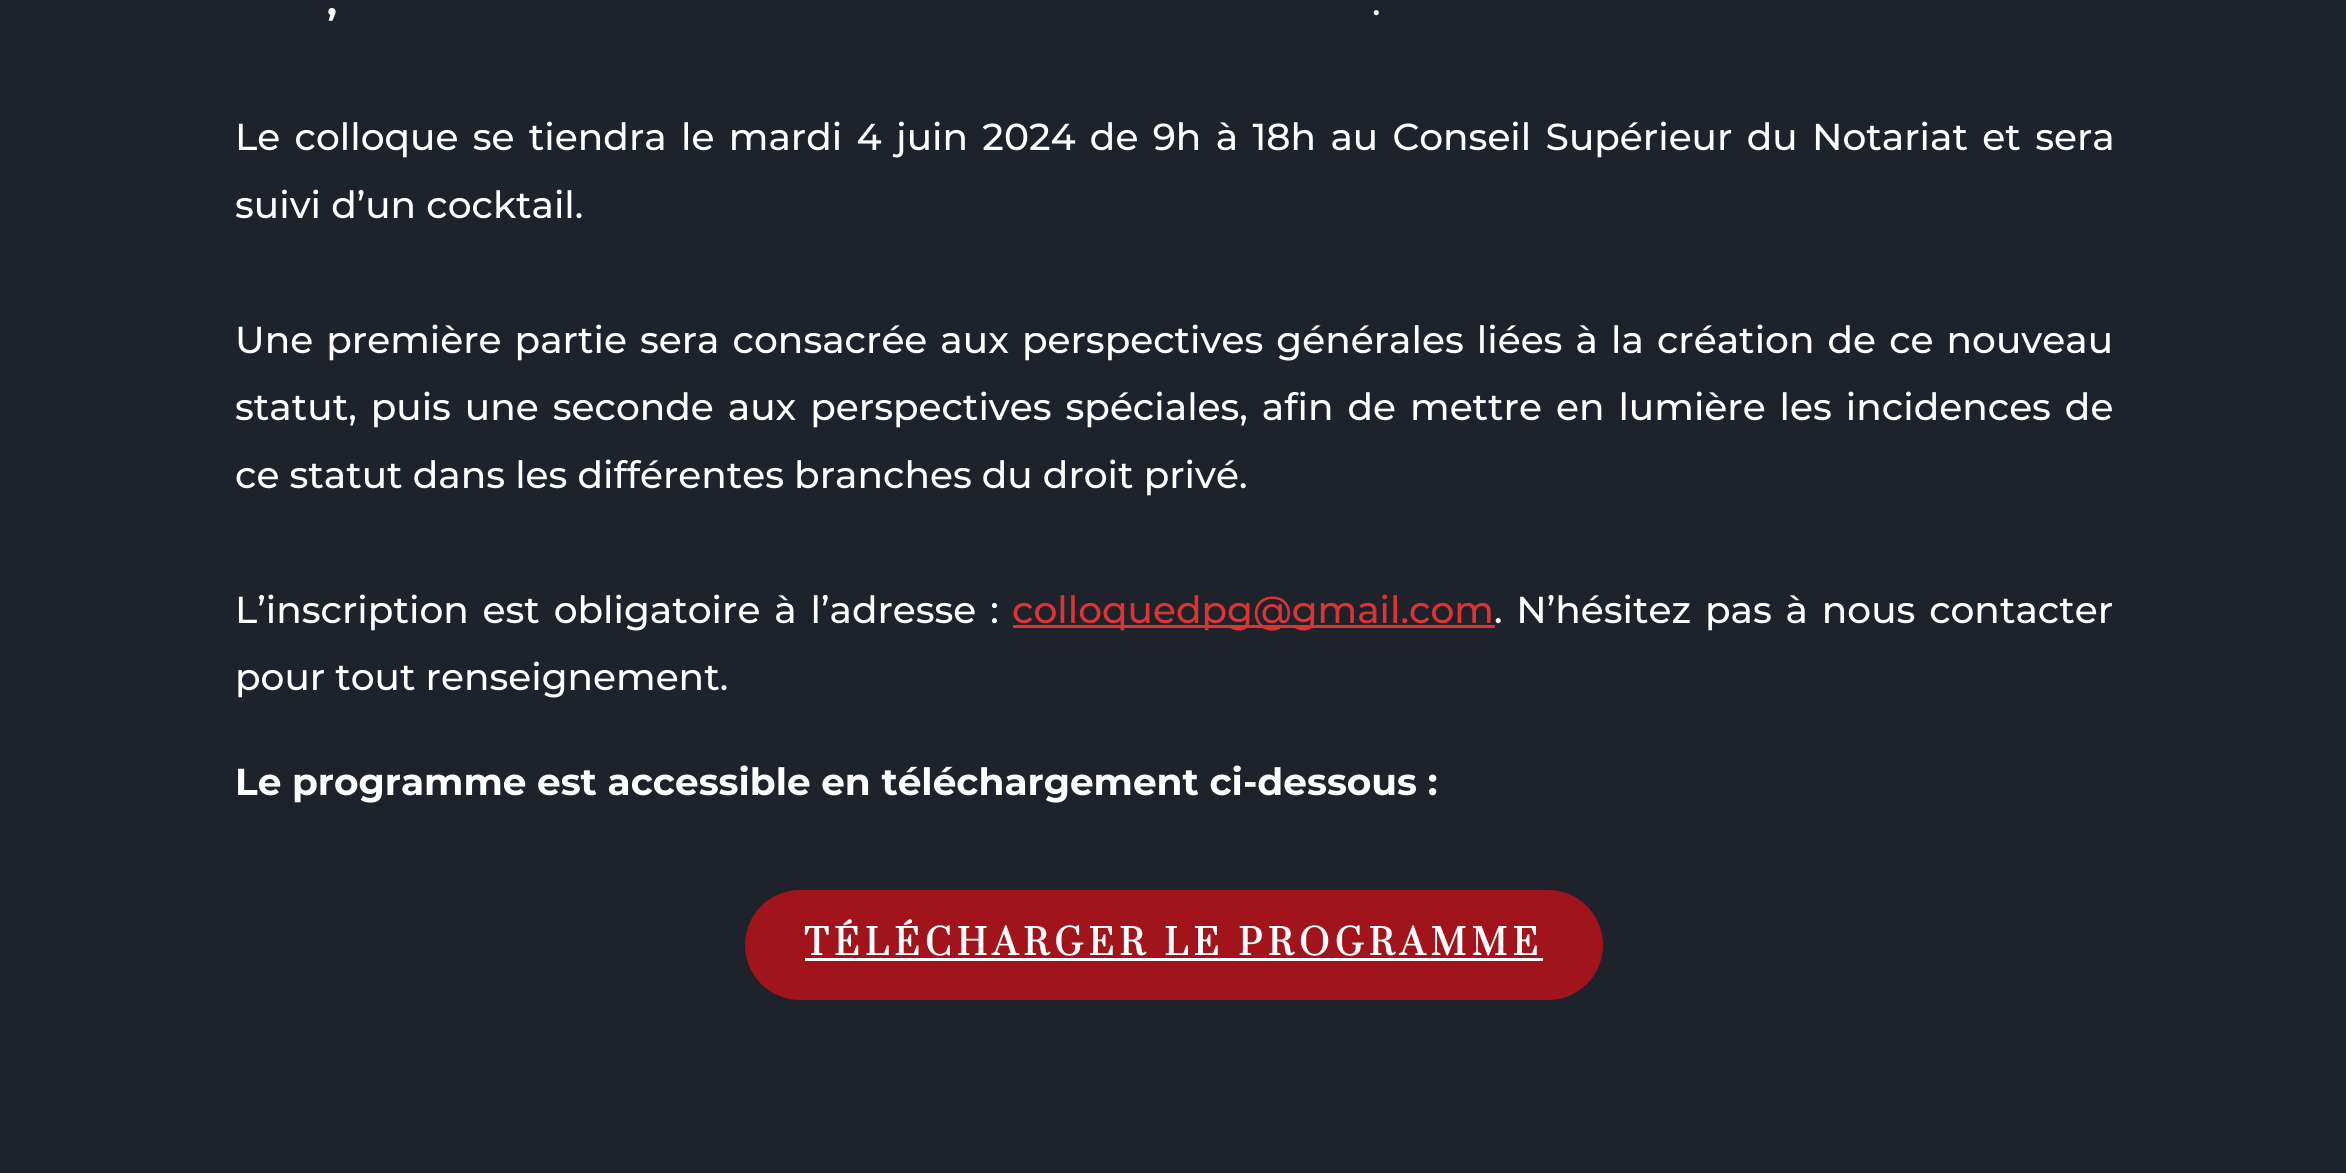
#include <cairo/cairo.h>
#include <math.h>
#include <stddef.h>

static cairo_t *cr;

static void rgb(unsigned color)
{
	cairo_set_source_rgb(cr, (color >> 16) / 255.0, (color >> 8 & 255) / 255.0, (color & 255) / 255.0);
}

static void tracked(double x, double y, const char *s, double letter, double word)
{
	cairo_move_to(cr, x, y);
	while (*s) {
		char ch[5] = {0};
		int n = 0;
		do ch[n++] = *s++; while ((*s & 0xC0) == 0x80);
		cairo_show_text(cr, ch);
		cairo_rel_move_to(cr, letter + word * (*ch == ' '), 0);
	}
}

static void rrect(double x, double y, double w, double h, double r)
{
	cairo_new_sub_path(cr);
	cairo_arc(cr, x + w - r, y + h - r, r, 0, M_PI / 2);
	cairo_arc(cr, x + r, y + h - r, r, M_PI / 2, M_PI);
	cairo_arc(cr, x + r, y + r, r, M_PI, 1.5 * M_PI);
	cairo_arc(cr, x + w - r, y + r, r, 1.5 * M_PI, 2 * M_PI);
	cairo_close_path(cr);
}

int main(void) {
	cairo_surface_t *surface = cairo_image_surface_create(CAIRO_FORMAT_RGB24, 2346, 1173);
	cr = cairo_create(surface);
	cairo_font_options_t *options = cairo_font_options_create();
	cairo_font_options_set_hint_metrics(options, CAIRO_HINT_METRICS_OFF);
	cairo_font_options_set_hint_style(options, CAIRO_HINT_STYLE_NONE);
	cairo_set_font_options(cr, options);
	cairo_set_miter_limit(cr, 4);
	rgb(0x1e232b);
	cairo_paint(cr);
	rgb(0xdd3333);
	cairo_rectangle(cr, 1013, 625, 482, 3);
	cairo_fill(cr);
	rgb(0xa1141c);
	rrect(745, 890, 858, 110, 55);
	cairo_fill(cr);
	rgb(0xffffff);
	cairo_rectangle(cr, 805, 958, 738, 3);
	cairo_fill(cr);
	cairo_select_font_face(cr, "Montserrat", CAIRO_FONT_SLANT_NORMAL, CAIRO_FONT_WEIGHT_BOLD);
	cairo_set_font_size(cr, 37.5);
	cairo_move_to(cr, 327, 15);
	cairo_show_text(cr, ",");
	cairo_select_font_face(cr, "Montserrat Medium", CAIRO_FONT_SLANT_NORMAL, CAIRO_FONT_WEIGHT_NORMAL);
	cairo_move_to(cr, 1372, 15);
	cairo_show_text(cr, ".");
	tracked(235, 150, "Le colloque se tiendra le mardi 4 juin 2024 de 9h à 18h au Conseil Supérieur du Notariat et sera", 0, 4.25);
	cairo_move_to(cr, 235, 218);
	cairo_show_text(cr, "suivi d’un cocktail.");
	tracked(235, 353, "Une première partie sera consacrée aux perspectives générales liées à la création de ce nouveau", 0, 3);
	tracked(235, 420, "statut, puis une seconde aux perspectives spéciales, afin de mettre en lumière les incidences de", 0, 3.9);
	cairo_move_to(cr, 235, 488);
	cairo_show_text(cr, "ce statut dans les différentes branches du droit privé.");
	tracked(235, 623, "L’inscription est obligatoire à l’adresse :", 0, 3.75);
	rgb(0xdd3333);
	cairo_move_to(cr, 1012, 623);
	cairo_show_text(cr, "colloquedpg@gmail.com");
	rgb(0xffffff);
	tracked(1494, 623, ". N’hésitez pas à nous contacter", 0, 3.75);
	cairo_move_to(cr, 235, 690);
	cairo_show_text(cr, "pour tout renseignement.");
	cairo_select_font_face(cr, "Montserrat", CAIRO_FONT_SLANT_NORMAL, CAIRO_FONT_WEIGHT_BOLD);
	cairo_move_to(cr, 235, 795);
	cairo_show_text(cr, "Le programme est accessible en téléchargement ci-dessous :");
	cairo_select_font_face(cr, "Prata", CAIRO_FONT_SLANT_NORMAL, CAIRO_FONT_WEIGHT_BOLD);
	cairo_set_font_size(cr, 35);
	tracked(804, 955, "TÉLÉCHARGER LE PROGRAMME", 5.6, 0);
	cairo_surface_write_to_png(surface, "page.png");
	cairo_font_options_destroy(options);
	cairo_destroy(cr);
	cairo_surface_destroy(surface);
	return 0;
}
